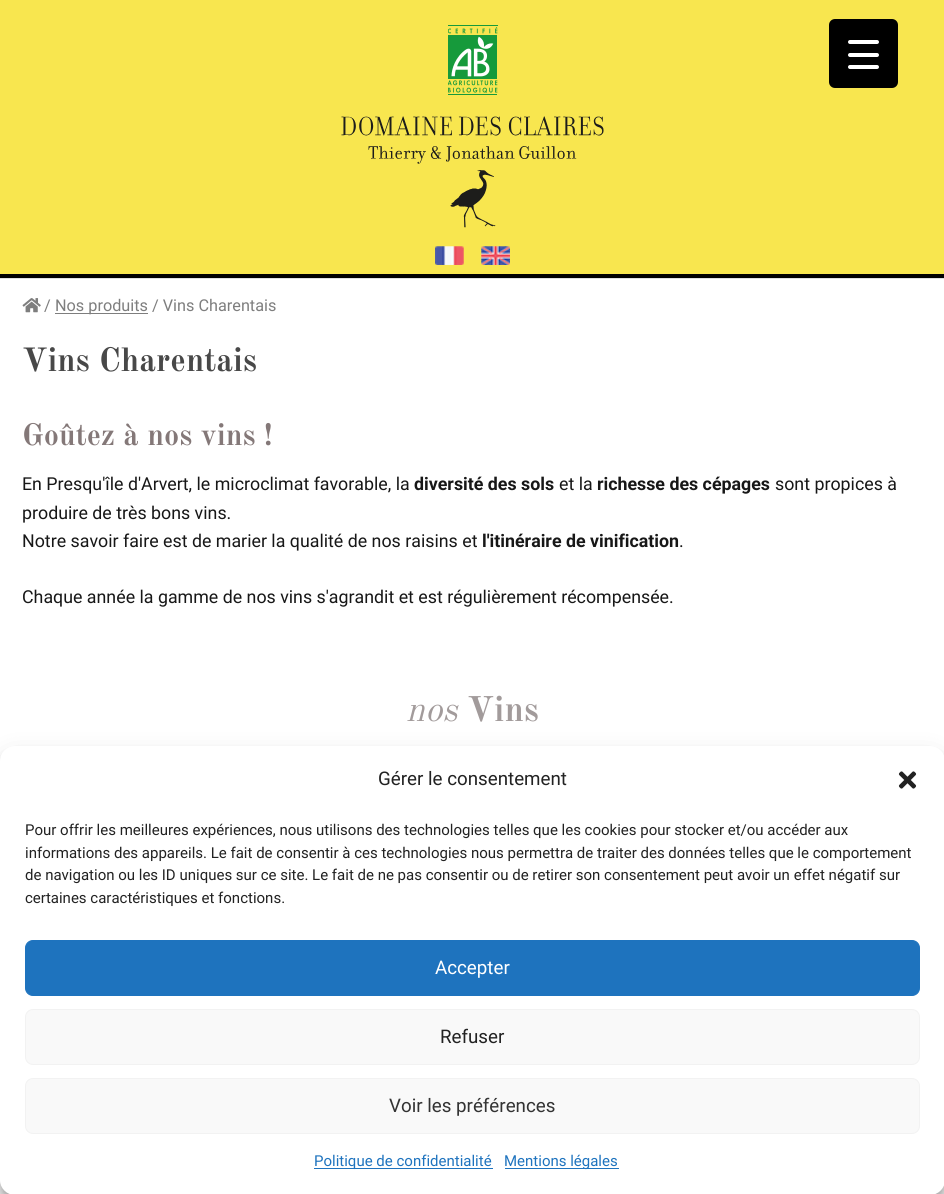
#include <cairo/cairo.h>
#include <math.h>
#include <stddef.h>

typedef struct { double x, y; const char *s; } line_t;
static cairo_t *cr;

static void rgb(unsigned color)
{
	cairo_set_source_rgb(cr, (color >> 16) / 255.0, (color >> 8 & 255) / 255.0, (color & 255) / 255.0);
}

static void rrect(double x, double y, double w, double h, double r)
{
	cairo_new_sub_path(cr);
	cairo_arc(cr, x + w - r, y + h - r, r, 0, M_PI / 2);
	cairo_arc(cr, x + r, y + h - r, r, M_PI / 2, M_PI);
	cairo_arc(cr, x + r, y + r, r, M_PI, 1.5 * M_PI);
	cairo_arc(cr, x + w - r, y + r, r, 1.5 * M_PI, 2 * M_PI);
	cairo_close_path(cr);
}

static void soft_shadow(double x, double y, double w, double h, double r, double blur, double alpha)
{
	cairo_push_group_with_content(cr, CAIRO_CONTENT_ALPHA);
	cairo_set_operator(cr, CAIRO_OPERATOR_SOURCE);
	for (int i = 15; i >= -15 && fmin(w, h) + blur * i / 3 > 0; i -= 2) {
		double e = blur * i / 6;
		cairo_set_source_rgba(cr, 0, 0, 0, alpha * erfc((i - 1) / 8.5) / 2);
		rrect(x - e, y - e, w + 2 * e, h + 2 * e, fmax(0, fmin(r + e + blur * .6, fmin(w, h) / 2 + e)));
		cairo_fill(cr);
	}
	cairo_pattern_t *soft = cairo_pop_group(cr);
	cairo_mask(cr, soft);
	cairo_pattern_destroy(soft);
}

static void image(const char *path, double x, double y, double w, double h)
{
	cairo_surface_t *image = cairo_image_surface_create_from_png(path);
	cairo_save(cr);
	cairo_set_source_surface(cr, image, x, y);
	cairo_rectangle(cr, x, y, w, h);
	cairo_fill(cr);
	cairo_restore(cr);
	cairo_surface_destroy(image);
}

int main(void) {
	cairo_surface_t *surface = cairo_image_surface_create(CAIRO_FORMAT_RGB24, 944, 1194);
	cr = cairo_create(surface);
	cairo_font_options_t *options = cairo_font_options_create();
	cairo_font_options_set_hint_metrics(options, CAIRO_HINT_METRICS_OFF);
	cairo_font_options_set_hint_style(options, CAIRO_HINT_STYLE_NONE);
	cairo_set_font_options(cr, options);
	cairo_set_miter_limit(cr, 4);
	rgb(0xffffff);
	cairo_paint(cr);
	rgb(0xf8e64f);
	cairo_rectangle(cr, 0, 0, 944, 274);
	cairo_fill(cr);
	rgb(0x000000);
	rrect(829, 19, 69, 69, 6);
	cairo_fill(cr);
	rgb(0xffffff);
	rrect(848, 53, 31, 4, 2);
	cairo_fill(cr);
	rrect(848, 40, 31, 4, 2);
	cairo_fill(cr);
	rrect(848, 65, 31, 4, 2);
	cairo_fill(cr);
	image("img/1.png", 448, 25, 50, 70);
	image("img/2.png", 341, 116, 263, 112);
	image("img/3.png", 435, 246, 29, 19);
	image("img/4.png", 481, 246, 29, 19);
	rgb(0x000000);
	cairo_rectangle(cr, 0, 274, 944, 4);
	cairo_fill(cr);
	rgb(0xdfdfdf);
	cairo_rectangle(cr, 0, 278, 944, 1);
	cairo_fill(cr);
	image("img/5.png", 22, 298, 19, 15);
	rgb(0x7e7e7e);
	cairo_rectangle(cr, 55, 313, 93, 1);
	cairo_fill(cr);
	rgb(0x000000);
	soft_shadow(0, 754, 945, 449, 15, 4, 0.23);
	soft_shadow(0, 759, 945, 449, 15, 12.5, 0.19);
	rgb(0xffffff);
	rrect(0, 746, 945, 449, 15);
	cairo_fill(cr);
	image("img/6.png", 898, 771, 19, 18);
	rgb(0x1e73be);
	rrect(25.5, 940.5, 894, 55, 7.5);
	cairo_fill_preserve(cr);
	cairo_set_line_width(cr, 1);
	cairo_stroke(cr);
	rgb(0xf9f9f9);
	rrect(25.5, 1009.5, 894, 55, 7.5);
	cairo_fill_preserve(cr);
	rgb(0xf2f2f2);
	cairo_stroke(cr);
	rgb(0xf9f9f9);
	rrect(25.5, 1078.5, 894, 55, 7.5);
	cairo_fill_preserve(cr);
	rgb(0xf2f2f2);
	cairo_stroke(cr);
	rgb(0x1e73be);
	cairo_rectangle(cr, 314, 1168, 179, 1);
	cairo_fill(cr);
	cairo_rectangle(cr, 505, 1168, 114, 1);
	cairo_fill(cr);
	cairo_select_font_face(cr, "Roboto", CAIRO_FONT_SLANT_NORMAL, CAIRO_FONT_WEIGHT_NORMAL);
	cairo_set_font_size(cr, 16.25);
	rgb(0x7e7e7e);
	cairo_move_to(cr, 44, 311);
	cairo_show_text(cr, "/");
	cairo_move_to(cr, 55, 311);
	cairo_show_text(cr, "Nos produits / Vins Charentais");
	cairo_select_font_face(cr, "Old Standard TT", CAIRO_FONT_SLANT_NORMAL, CAIRO_FONT_WEIGHT_BOLD);
	cairo_set_font_size(cr, 33);
	rgb(0x484848);
	cairo_move_to(cr, 22, 371);
	cairo_show_text(cr, "Vins Charentais");
	cairo_set_font_size(cr, 30.25);
	rgb(0x847878);
	cairo_move_to(cr, 22, 445);
	cairo_show_text(cr, "Goûtez à nos vins !");
	cairo_select_font_face(cr, "Roboto", CAIRO_FONT_SLANT_NORMAL, CAIRO_FONT_WEIGHT_NORMAL);
	cairo_set_font_size(cr, 17.8);
	rgb(0x171717);
	cairo_move_to(cr, 22, 490);
	cairo_show_text(cr, "En Presqu'île d'Arvert, le microclimat favorable, la");
	cairo_select_font_face(cr, "Roboto", CAIRO_FONT_SLANT_NORMAL, CAIRO_FONT_WEIGHT_BOLD);
	cairo_move_to(cr, 414, 490);
	cairo_show_text(cr, "diversité des sols");
	cairo_select_font_face(cr, "Roboto", CAIRO_FONT_SLANT_NORMAL, CAIRO_FONT_WEIGHT_NORMAL);
	cairo_move_to(cr, 559, 490);
	cairo_show_text(cr, "et la");
	cairo_select_font_face(cr, "Roboto", CAIRO_FONT_SLANT_NORMAL, CAIRO_FONT_WEIGHT_BOLD);
	cairo_move_to(cr, 597, 490);
	cairo_show_text(cr, "richesse des cépages");
	cairo_select_font_face(cr, "Roboto", CAIRO_FONT_SLANT_NORMAL, CAIRO_FONT_WEIGHT_NORMAL);
	{
		static const line_t items[] = {
			{775, 490, "sont propices à"},
			{22, 519, "produire de très bons vins."},
			{22, 547, "Notre savoir faire est de marier la qualité de nos raisins et"},
		};
		for (size_t i = 0; i < sizeof items / sizeof *items; i++) {
			cairo_move_to(cr, items[i].x, items[i].y);
			cairo_show_text(cr, items[i].s);
		}
	}
	cairo_select_font_face(cr, "Roboto", CAIRO_FONT_SLANT_NORMAL, CAIRO_FONT_WEIGHT_BOLD);
	cairo_move_to(cr, 482, 547);
	cairo_show_text(cr, "l'itinéraire de vinification");
	cairo_select_font_face(cr, "Roboto", CAIRO_FONT_SLANT_NORMAL, CAIRO_FONT_WEIGHT_NORMAL);
	cairo_move_to(cr, 679, 547);
	cairo_show_text(cr, ".");
	cairo_move_to(cr, 22, 603);
	cairo_show_text(cr, "Chaque année la gamme de nos vins s'agrandit et est régulièrement récompensée.");
	cairo_select_font_face(cr, "Old Standard TT", CAIRO_FONT_SLANT_ITALIC, CAIRO_FONT_WEIGHT_NORMAL);
	cairo_set_font_size(cr, 35);
	rgb(0xa29b9b);
	cairo_move_to(cr, 406, 721);
	cairo_show_text(cr, "nos");
	cairo_select_font_face(cr, "Old Standard TT", CAIRO_FONT_SLANT_NORMAL, CAIRO_FONT_WEIGHT_BOLD);
	cairo_move_to(cr, 467, 721);
	cairo_show_text(cr, "Vins");
	cairo_select_font_face(cr, "Roboto", CAIRO_FONT_SLANT_NORMAL, CAIRO_FONT_WEIGHT_NORMAL);
	cairo_set_font_size(cr, 18.75);
	rgb(0x222222);
	cairo_move_to(cr, 378, 785);
	cairo_show_text(cr, "Gérer le consentement");
	cairo_set_font_size(cr, 15);
	{
		static const line_t items[] = {
			{25, 835, "Pour offrir les meilleures expériences, nous utilisons des technologies telles que les cookies pour stocker et/ou accéder aux"},
			{25, 858, "informations des appareils. Le fait de consentir à ces technologies nous permettra de traiter des données telles que le comportement"},
			{25, 880, "de navigation ou les ID uniques sur ce site. Le fait de ne pas consentir ou de retirer son consentement peut avoir un effet négatif sur"},
			{25, 903, "certaines caractéristiques et fonctions."},
		};
		for (size_t i = 0; i < sizeof items / sizeof *items; i++) {
			cairo_move_to(cr, items[i].x, items[i].y);
			cairo_show_text(cr, items[i].s);
		}
	}
	cairo_set_font_size(cr, 18.75);
	rgb(0xffffff);
	cairo_move_to(cr, 435, 974);
	cairo_show_text(cr, "Accepter");
	rgb(0x222222);
	cairo_move_to(cr, 440, 1043);
	cairo_show_text(cr, "Refuser");
	rgb(0x333333);
	cairo_move_to(cr, 389, 1112);
	cairo_show_text(cr, "Voir les préférences");
	cairo_set_font_size(cr, 15);
	rgb(0x1e73be);
	cairo_move_to(cr, 314, 1166);
	cairo_show_text(cr, "Politique de confidentialité");
	cairo_move_to(cr, 504, 1166);
	cairo_show_text(cr, "Mentions légales");
	cairo_surface_write_to_png(surface, "page.png");
	cairo_font_options_destroy(options);
	cairo_destroy(cr);
	cairo_surface_destroy(surface);
	return 0;
}
